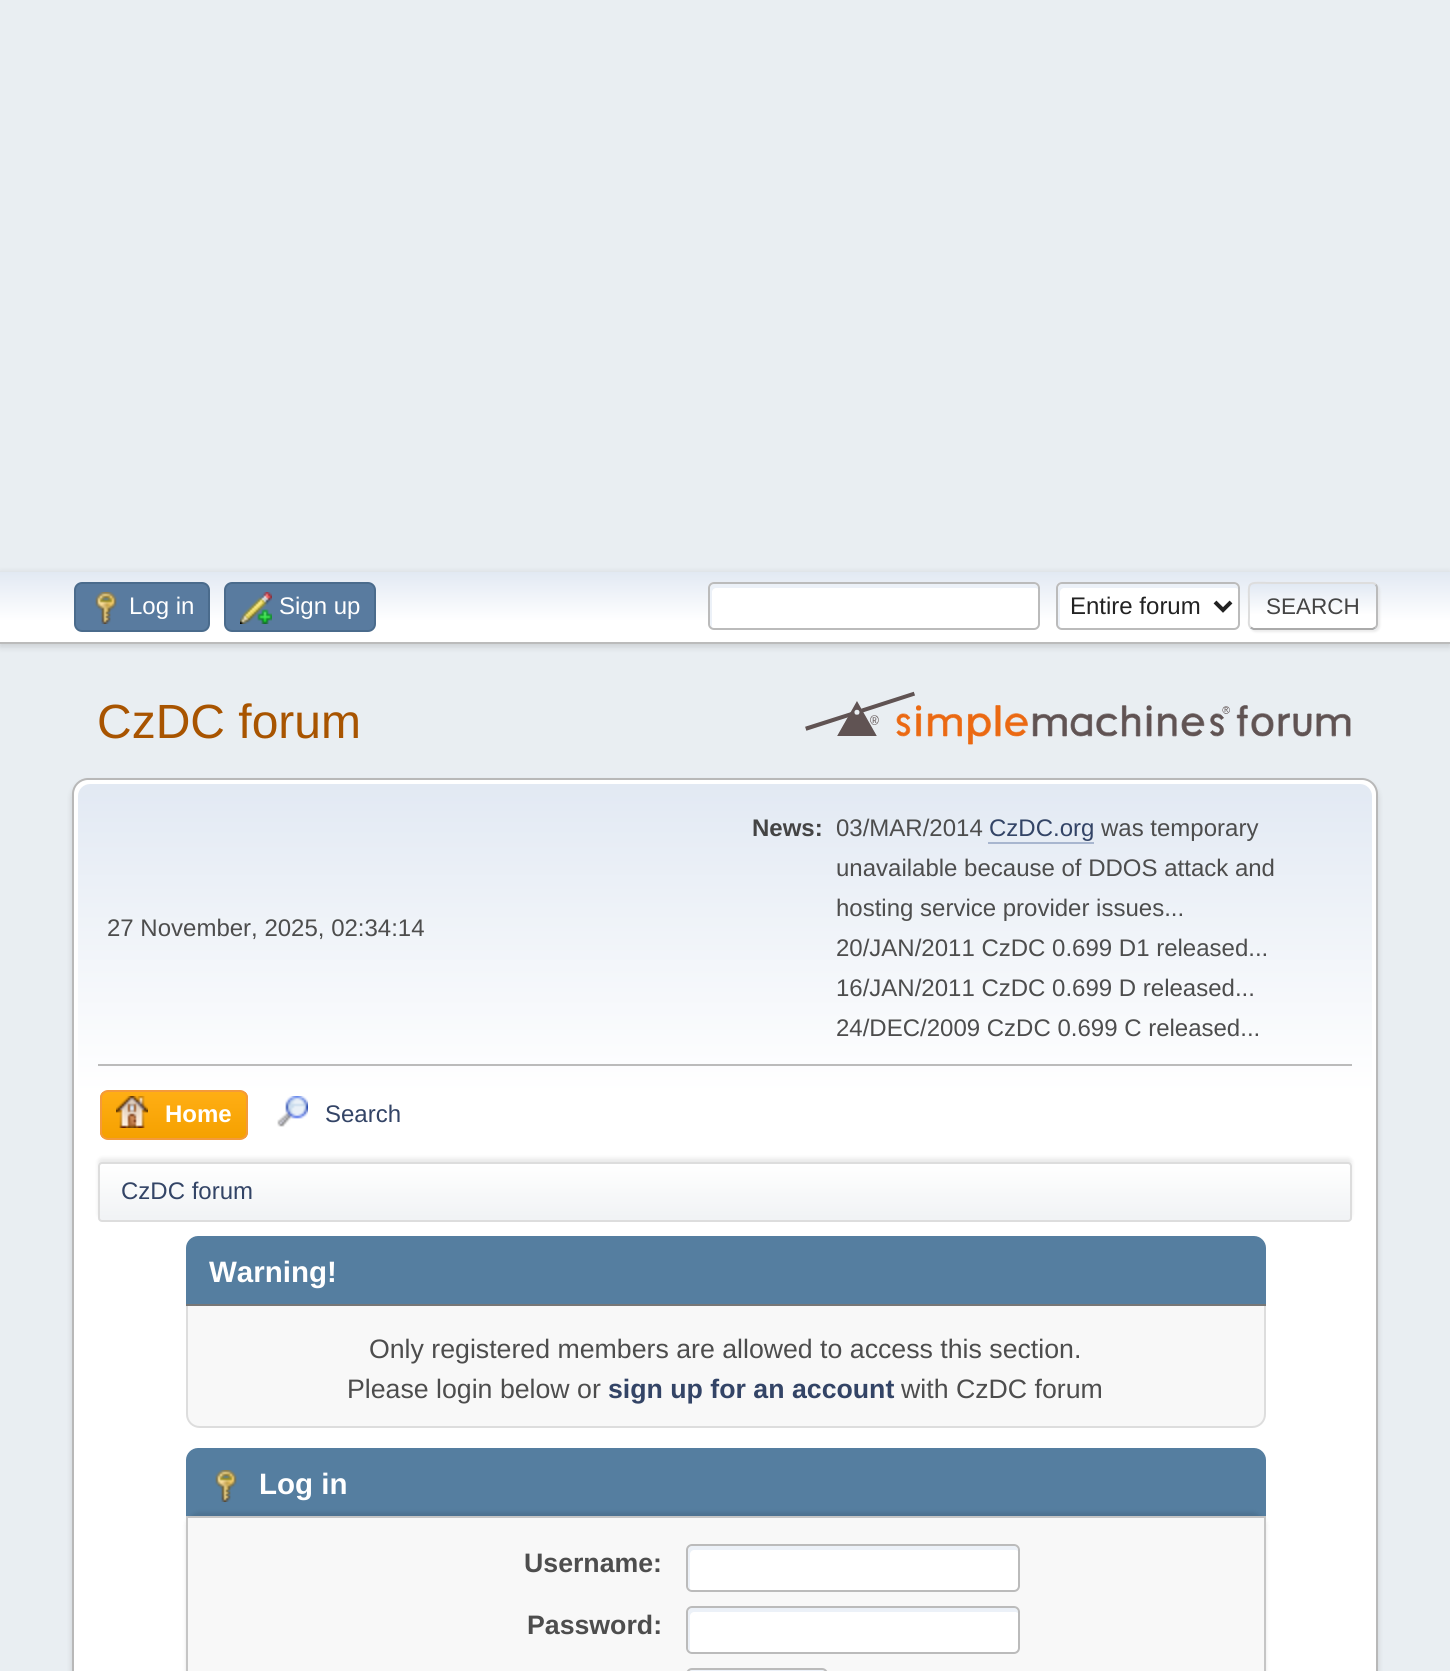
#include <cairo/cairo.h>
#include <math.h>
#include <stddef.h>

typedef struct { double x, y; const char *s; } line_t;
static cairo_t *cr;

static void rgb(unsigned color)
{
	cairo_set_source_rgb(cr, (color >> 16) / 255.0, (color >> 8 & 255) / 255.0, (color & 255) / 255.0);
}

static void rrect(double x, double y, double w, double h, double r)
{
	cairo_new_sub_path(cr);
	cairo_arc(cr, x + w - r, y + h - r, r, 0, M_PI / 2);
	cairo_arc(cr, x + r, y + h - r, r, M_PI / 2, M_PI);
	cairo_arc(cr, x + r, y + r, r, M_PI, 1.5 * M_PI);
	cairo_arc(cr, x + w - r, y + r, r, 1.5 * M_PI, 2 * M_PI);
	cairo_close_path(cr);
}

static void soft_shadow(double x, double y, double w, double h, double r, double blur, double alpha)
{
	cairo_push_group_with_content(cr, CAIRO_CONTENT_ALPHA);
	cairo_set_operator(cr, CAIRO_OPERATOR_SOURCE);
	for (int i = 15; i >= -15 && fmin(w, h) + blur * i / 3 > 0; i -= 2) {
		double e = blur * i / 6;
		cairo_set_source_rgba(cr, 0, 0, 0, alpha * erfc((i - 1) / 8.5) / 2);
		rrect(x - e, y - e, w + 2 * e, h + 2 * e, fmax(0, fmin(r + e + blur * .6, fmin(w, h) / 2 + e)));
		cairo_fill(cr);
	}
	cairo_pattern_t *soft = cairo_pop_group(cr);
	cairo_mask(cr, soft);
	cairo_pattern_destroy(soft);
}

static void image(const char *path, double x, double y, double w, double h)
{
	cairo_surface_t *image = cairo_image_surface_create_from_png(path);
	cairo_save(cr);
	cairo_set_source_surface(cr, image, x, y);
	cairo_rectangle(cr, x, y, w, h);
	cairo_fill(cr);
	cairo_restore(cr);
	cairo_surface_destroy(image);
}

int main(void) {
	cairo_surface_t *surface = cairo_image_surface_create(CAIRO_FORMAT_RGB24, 1450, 1671);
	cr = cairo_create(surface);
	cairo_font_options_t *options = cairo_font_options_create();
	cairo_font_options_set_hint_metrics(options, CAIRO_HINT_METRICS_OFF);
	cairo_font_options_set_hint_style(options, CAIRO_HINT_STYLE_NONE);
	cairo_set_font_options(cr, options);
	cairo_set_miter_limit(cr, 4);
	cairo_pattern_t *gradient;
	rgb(0xe9eef2);
	cairo_paint(cr);
	rgb(0x000000);
	soft_shadow(0, 574, 1450, 72, 0, 4, 0.16);
	gradient = cairo_pattern_create_linear(725, 572, 725, 642);
	cairo_pattern_add_color_stop_rgba(gradient, 0, 0.886, 0.914, 0.953, 1);
	cairo_pattern_add_color_stop_rgba(gradient, 0.7, 1, 1, 1, 1);
	cairo_set_source(cr, gradient);
	cairo_pattern_destroy(gradient);
	cairo_rectangle(cr, 0, 572, 1450, 70);
	cairo_fill(cr);
	rgb(0xbbbbbb);
	cairo_rectangle(cr, 0, 642, 1450, 2);
	cairo_fill(cr);
	rgb(0x597b9f);
	rrect(75, 583, 134, 48, 7);
	cairo_fill_preserve(cr);
	rgb(0x4a6b8c);
	cairo_stroke(cr);
	image("img/1.png", 95, 592, 22, 32);
	rgb(0x597b9f);
	rrect(225, 583, 150, 48, 7);
	cairo_fill_preserve(cr);
	rgb(0x4a6b8c);
	cairo_stroke(cr);
	image("img/2.png", 240, 592, 32, 32);
	rgb(0xffffff);
	rrect(708, 582, 332, 48, 6);
	cairo_fill(cr);
	rgb(0xecf1f8);
	cairo_new_path(cr);
	cairo_move_to(cr, 716, 588);
	cairo_line_to(cr, 1036, 588);
	cairo_line_to(cr, 1038, 589);
	cairo_line_to(cr, 1038, 588);
	cairo_curve_to(cr, 1038, 586, 1036, 584, 1034, 584);
	cairo_line_to(cr, 714, 584);
	cairo_curve_to(cr, 712, 584, 710, 586, 710, 588);
	cairo_line_to(cr, 710, 624);
	cairo_curve_to(cr, 710, 625, 711, 627, 712, 627);
	cairo_line_to(cr, 712, 592);
	cairo_curve_to(cr, 712, 590, 714, 588, 716, 588);
	cairo_close_path(cr);
	cairo_fill(cr);
	rrect(709, 583, 330, 46, 5);
	rgb(0xbbbbbb);
	cairo_stroke(cr);
	rgb(0xffffff);
	rrect(1056, 582, 184, 48, 6);
	cairo_fill(cr);
	rgb(0xecf1f8);
	cairo_new_path(cr);
	cairo_move_to(cr, 1064, 588);
	cairo_line_to(cr, 1236, 588);
	cairo_line_to(cr, 1238, 589);
	cairo_line_to(cr, 1238, 588);
	cairo_curve_to(cr, 1238, 586, 1236, 584, 1234, 584);
	cairo_line_to(cr, 1062, 584);
	cairo_curve_to(cr, 1060, 584, 1058, 586, 1058, 588);
	cairo_line_to(cr, 1058, 624);
	cairo_curve_to(cr, 1058, 625, 1059, 627, 1060, 627);
	cairo_line_to(cr, 1060, 592);
	cairo_curve_to(cr, 1060, 590, 1062, 588, 1064, 588);
	cairo_close_path(cr);
	cairo_fill(cr);
	rrect(1057, 583, 182, 46, 5);
	rgb(0xbbbbbb);
	cairo_stroke(cr);
	cairo_new_path(cr);
	cairo_move_to(cr, 1215, 602);
	cairo_line_to(cr, 1223, 610);
	cairo_line_to(cr, 1231, 602);
	rgb(0x222222);
	cairo_set_line_width(cr, 4);
	cairo_stroke(cr);
	rgb(0xdddddd);
	soft_shadow(1250, 584, 130, 48, 6, 1, 0.57);
	cairo_save(cr);
	rrect(1248, 582, 130, 48, 6);
	cairo_clip(cr);
	gradient = cairo_pattern_create_linear(1313, 584, 1313, 628);
	cairo_pattern_add_color_stop_rgba(gradient, 0, 0.886, 0.914, 0.953, 1);
	cairo_pattern_add_color_stop_rgba(gradient, 0.7, 1, 1, 1, 1);
	cairo_set_source(cr, gradient);
	cairo_pattern_destroy(gradient);
	cairo_rectangle(cr, 1248, 584, 130, 44);
	cairo_fill(cr);
	gradient = cairo_pattern_create_linear(1313, 628, 1313, 672);
	cairo_pattern_add_color_stop_rgba(gradient, 0, 0.886, 0.914, 0.953, 1);
	cairo_pattern_add_color_stop_rgba(gradient, 0.7, 1, 1, 1, 1);
	cairo_set_source(cr, gradient);
	cairo_pattern_destroy(gradient);
	cairo_rectangle(cr, 1248, 628, 130, 2);
	cairo_fill(cr);
	cairo_restore(cr);
	cairo_new_path(cr);
	cairo_move_to(cr, 1375.5, 584.5);
	cairo_curve_to(cr, 1376.5, 585.5, 1377, 586.5, 1377, 588);
	cairo_line_to(cr, 1377, 624);
	cairo_curve_to(cr, 1377, 625.5, 1376.5, 626.5, 1375.5, 627.5);
	rgb(0xbbbbbb);
	cairo_set_line_width(cr, 2);
	cairo_stroke(cr);
	cairo_new_path(cr);
	cairo_move_to(cr, 1375.5, 627.5);
	cairo_line_to(cr, 1372.5, 629);
	cairo_line_to(cr, 1253.5, 629);
	cairo_line_to(cr, 1250.5, 627.5);
	rgb(0xaaaaaa);
	cairo_stroke(cr);
	cairo_new_path(cr);
	cairo_move_to(cr, 1250.5, 627.5);
	cairo_curve_to(cr, 1248, 625, 1249, 620.5, 1249, 618);
	cairo_line_to(cr, 1249, 606);
	cairo_curve_to(cr, 1249, 579, 1245, 583, 1273.5, 583);
	cairo_line_to(cr, 1372, 583);
	cairo_curve_to(cr, 1373.5, 583, 1374.5, 583.5, 1375.5, 584.5);
	rgb(0xdddddd);
	cairo_stroke(cr);
	image("img/3.png", 805, 691, 546, 54);
	rgb(0x000000);
	soft_shadow(72, 782, 1306, 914, 16, 3, 0.14);
	rgb(0xffffff);
	rrect(73, 779, 1304, 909, 15);
	cairo_fill_preserve(cr);
	rgb(0xb8b8b8);
	cairo_stroke(cr);
	gradient = cairo_pattern_create_linear(725, 784, 725, 1226);
	cairo_pattern_add_color_stop_rgba(gradient, 0, 0.886, 0.914, 0.953, 1);
	cairo_pattern_add_color_stop_rgba(gradient, 0.7, 1, 1, 1, 1);
	cairo_set_source(cr, gradient);
	cairo_pattern_destroy(gradient);
	cairo_new_path(cr);
	cairo_move_to(cr, 90, 784);
	cairo_line_to(cr, 1360, 784);
	cairo_curve_to(cr, 1366.5, 784, 1372, 789.5, 1372, 796);
	cairo_line_to(cr, 1372, 1226);
	cairo_line_to(cr, 78, 1226);
	cairo_line_to(cr, 78, 796);
	cairo_curve_to(cr, 78, 789.5, 83.5, 784, 90, 784);
	cairo_close_path(cr);
	cairo_fill(cr);
	rgb(0xbbbbbb);
	cairo_rectangle(cr, 98, 1064, 1254, 2);
	cairo_fill(cr);
	rgb(0xa8b6cf);
	cairo_rectangle(cr, 988, 842, 106, 2);
	cairo_fill(cr);
	cairo_save(cr);
	rrect(100, 1090, 148, 50, 8);
	cairo_clip(cr);
	gradient = cairo_pattern_create_linear(174, 1092, 174, 1138);
	cairo_pattern_add_color_stop_rgba(gradient, 0, 1, 0.682, 0.078, 1);
	cairo_pattern_add_color_stop_rgba(gradient, 1, 0.961, 0.631, 0, 1);
	cairo_set_source(cr, gradient);
	cairo_pattern_destroy(gradient);
	cairo_rectangle(cr, 100, 1092, 148, 46);
	cairo_fill(cr);
	cairo_restore(cr);
	rrect(101, 1091, 146, 48, 7);
	rgb(0xf49a3a);
	cairo_stroke(cr);
	image("img/4.png", 116, 1096, 32, 32);
	image("img/5.png", 277, 1096, 31, 31);
	rgb(0x000000);
	soft_shadow(98, 1158, 1254, 60, 4, 2, 0.08);
	cairo_save(cr);
	rrect(98, 1162, 1254, 60, 4);
	cairo_clip(cr);
	gradient = cairo_pattern_create_linear(725, 1164, 725, 1220);
	cairo_pattern_add_color_stop_rgba(gradient, 0, 1, 1, 1, 1);
	cairo_pattern_add_color_stop_rgba(gradient, 0.95, 0.945, 0.953, 0.961, 1);
	cairo_set_source(cr, gradient);
	cairo_pattern_destroy(gradient);
	cairo_rectangle(cr, 98, 1164, 1254, 56);
	cairo_fill(cr);
	cairo_restore(cr);
	rrect(99, 1163, 1252, 58, 3);
	rgb(0xdddddd);
	cairo_stroke(cr);
	rgb(0x557ea0);
	cairo_new_path(cr);
	cairo_move_to(cr, 198, 1236);
	cairo_line_to(cr, 1254, 1236);
	cairo_curve_to(cr, 1260.5, 1236, 1266, 1241.5, 1266, 1248);
	cairo_line_to(cr, 1266, 1306);
	cairo_line_to(cr, 186, 1306);
	cairo_line_to(cr, 186, 1248);
	cairo_curve_to(cr, 186, 1241.5, 191.5, 1236, 198, 1236);
	cairo_close_path(cr);
	cairo_fill(cr);
	rgb(0x777777);
	cairo_rectangle(cr, 186, 1304, 1080, 2);
	cairo_fill(cr);
	rgb(0xf8f8f8);
	cairo_new_path(cr);
	cairo_move_to(cr, 186, 1306);
	cairo_line_to(cr, 1266, 1306);
	cairo_line_to(cr, 1266, 1414);
	cairo_curve_to(cr, 1266, 1421.5, 1259.5, 1428, 1252, 1428);
	cairo_line_to(cr, 200, 1428);
	cairo_curve_to(cr, 192.5, 1428, 186, 1421.5, 186, 1414);
	cairo_close_path(cr);
	cairo_fill(cr);
	rgb(0xdddddd);
	cairo_set_fill_rule(cr, CAIRO_FILL_RULE_EVEN_ODD);
	cairo_new_path(cr);
	cairo_move_to(cr, 186, 1306);
	cairo_line_to(cr, 1266, 1306);
	cairo_line_to(cr, 1266, 1414);
	cairo_curve_to(cr, 1266, 1422, 1260, 1428, 1252, 1428);
	cairo_line_to(cr, 200, 1428);
	cairo_curve_to(cr, 192, 1428, 186, 1422, 186, 1414);
	cairo_close_path(cr);
	cairo_move_to(cr, 188, 1306);
	cairo_line_to(cr, 1264, 1306);
	cairo_line_to(cr, 1264, 1414);
	cairo_curve_to(cr, 1264, 1421, 1259, 1426, 1252, 1426);
	cairo_line_to(cr, 200, 1426);
	cairo_curve_to(cr, 193, 1426, 188, 1421, 188, 1414);
	cairo_close_path(cr);
	cairo_fill(cr);
	rgb(0x557ea0);
	cairo_new_path(cr);
	cairo_move_to(cr, 198, 1448);
	cairo_line_to(cr, 1254, 1448);
	cairo_curve_to(cr, 1260.5, 1448, 1266, 1453.5, 1266, 1460);
	cairo_line_to(cr, 1266, 1518);
	cairo_line_to(cr, 186, 1518);
	cairo_line_to(cr, 186, 1460);
	cairo_curve_to(cr, 186, 1453.5, 191.5, 1448, 198, 1448);
	cairo_close_path(cr);
	cairo_fill(cr);
	image("img/6.png", 215, 1470, 22, 32);
	rgb(0x000000);
	soft_shadow(186, 1512, 1080, 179, 14, 2, 0.1);
	rgb(0xf8f8f8);
	cairo_rectangle(cr, 187, 1517, 1078, 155);
	cairo_fill_preserve(cr);
	rgb(0xc5c5c5);
	cairo_stroke(cr);
	rgb(0xffffff);
	rrect(686, 1544, 334, 48, 6);
	cairo_fill(cr);
	rgb(0xecf1f8);
	cairo_set_fill_rule(cr, CAIRO_FILL_RULE_WINDING);
	cairo_new_path(cr);
	cairo_move_to(cr, 694, 1550);
	cairo_line_to(cr, 1016, 1550);
	cairo_line_to(cr, 1018, 1551);
	cairo_line_to(cr, 1018, 1550);
	cairo_curve_to(cr, 1018, 1548, 1016, 1546, 1014, 1546);
	cairo_line_to(cr, 692, 1546);
	cairo_curve_to(cr, 690, 1546, 688, 1548, 688, 1550);
	cairo_line_to(cr, 688, 1586);
	cairo_curve_to(cr, 688, 1587, 689, 1589, 690, 1589);
	cairo_line_to(cr, 690, 1554);
	cairo_curve_to(cr, 690, 1552, 692, 1550, 694, 1550);
	cairo_close_path(cr);
	cairo_fill(cr);
	rrect(687, 1545, 332, 46, 5);
	rgb(0xbbbbbb);
	cairo_stroke(cr);
	rgb(0xffffff);
	rrect(686, 1606, 334, 48, 6);
	cairo_fill(cr);
	rgb(0xecf1f8);
	cairo_new_path(cr);
	cairo_move_to(cr, 694, 1612);
	cairo_line_to(cr, 1016, 1612);
	cairo_line_to(cr, 1018, 1613);
	cairo_line_to(cr, 1018, 1612);
	cairo_curve_to(cr, 1018, 1610, 1016, 1608, 1014, 1608);
	cairo_line_to(cr, 692, 1608);
	cairo_curve_to(cr, 690, 1608, 688, 1610, 688, 1612);
	cairo_line_to(cr, 688, 1648);
	cairo_curve_to(cr, 688, 1649, 689, 1651, 690, 1651);
	cairo_line_to(cr, 690, 1616);
	cairo_curve_to(cr, 690, 1614, 692, 1612, 694, 1612);
	cairo_close_path(cr);
	cairo_fill(cr);
	rrect(687, 1607, 332, 46, 5);
	rgb(0xbbbbbb);
	cairo_stroke(cr);
	rgb(0xecf1f8);
	cairo_new_path(cr);
	cairo_move_to(cr, 694, 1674);
	cairo_line_to(cr, 824, 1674);
	cairo_line_to(cr, 826, 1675);
	cairo_line_to(cr, 826, 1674);
	cairo_curve_to(cr, 826, 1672, 824, 1670, 822, 1670);
	cairo_line_to(cr, 692, 1670);
	cairo_curve_to(cr, 690, 1670, 688, 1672, 688, 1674);
	cairo_line_to(cr, 688, 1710);
	cairo_curve_to(cr, 688, 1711, 689, 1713, 690, 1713);
	cairo_line_to(cr, 690, 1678);
	cairo_curve_to(cr, 690, 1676, 692, 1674, 694, 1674);
	cairo_close_path(cr);
	cairo_fill(cr);
	rrect(687, 1669, 140, 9, 5);
	rgb(0xbbbbbb);
	cairo_stroke(cr);
	cairo_select_font_face(cr, "Liberation Sans", CAIRO_FONT_SLANT_NORMAL, CAIRO_FONT_WEIGHT_NORMAL);
	cairo_set_font_size(cr, 24);
	rgb(0xffffff);
	cairo_move_to(cr, 129, 614);
	cairo_show_text(cr, "Log in");
	cairo_move_to(cr, 279, 614);
	cairo_show_text(cr, "Sign up");
	rgb(0x222222);
	cairo_move_to(cr, 1070, 614);
	cairo_show_text(cr, "Entire forum");
	cairo_set_font_size(cr, 22.5);
	rgb(0x444444);
	cairo_move_to(cr, 1266, 614);
	cairo_show_text(cr, "SEARCH");
	cairo_set_font_size(cr, 48);
	rgb(0xa85400);
	cairo_move_to(cr, 97, 738);
	cairo_show_text(cr, "CzDC forum");
	cairo_set_font_size(cr, 24);
	rgb(0x4d4d4d);
	cairo_move_to(cr, 107, 936);
	cairo_show_text(cr, "27 November, 2025, 02:34:14");
	cairo_select_font_face(cr, "Liberation Sans", CAIRO_FONT_SLANT_NORMAL, CAIRO_FONT_WEIGHT_BOLD);
	rgb(0x444444);
	cairo_move_to(cr, 752, 836);
	cairo_show_text(cr, "News:");
	cairo_select_font_face(cr, "Liberation Sans", CAIRO_FONT_SLANT_NORMAL, CAIRO_FONT_WEIGHT_NORMAL);
	rgb(0x4d4d4d);
	cairo_move_to(cr, 836, 836);
	cairo_show_text(cr, "03/MAR/2014");
	rgb(0x334466);
	cairo_move_to(cr, 989, 836);
	cairo_show_text(cr, "CzDC.org");
	rgb(0x4d4d4d);
	{
		static const line_t items[] = {
			{1101, 836, "was temporary"},
			{836, 876, "unavailable because of DDOS attack and"},
			{836, 916, "hosting service provider issues..."},
			{836, 956, "20/JAN/2011 CzDC 0.699 D1 released..."},
			{836, 996, "16/JAN/2011 CzDC 0.699 D released..."},
			{836, 1036, "24/DEC/2009 CzDC 0.699 C released..."},
		};
		for (size_t i = 0; i < sizeof items / sizeof *items; i++) {
			cairo_move_to(cr, items[i].x, items[i].y);
			cairo_show_text(cr, items[i].s);
		}
	}
	cairo_select_font_face(cr, "Liberation Sans", CAIRO_FONT_SLANT_NORMAL, CAIRO_FONT_WEIGHT_BOLD);
	rgb(0xffffff);
	cairo_move_to(cr, 165, 1122);
	cairo_show_text(cr, "Home");
	cairo_select_font_face(cr, "Liberation Sans", CAIRO_FONT_SLANT_NORMAL, CAIRO_FONT_WEIGHT_NORMAL);
	rgb(0x334466);
	cairo_move_to(cr, 325, 1122);
	cairo_show_text(cr, "Search");
	cairo_move_to(cr, 121, 1199);
	cairo_show_text(cr, "CzDC forum");
	cairo_select_font_face(cr, "Liberation Sans", CAIRO_FONT_SLANT_NORMAL, CAIRO_FONT_WEIGHT_BOLD);
	cairo_set_font_size(cr, 29.5);
	rgb(0xffffff);
	cairo_move_to(cr, 209, 1282);
	cairo_show_text(cr, "Warning!");
	cairo_select_font_face(cr, "Liberation Sans", CAIRO_FONT_SLANT_NORMAL, CAIRO_FONT_WEIGHT_NORMAL);
	cairo_set_font_size(cr, 26.7);
	rgb(0x4d4d4d);
	cairo_move_to(cr, 369, 1358);
	cairo_show_text(cr, "Only registered members are allowed to access this section.");
	cairo_move_to(cr, 347, 1398);
	cairo_show_text(cr, "Please login below or");
	cairo_select_font_face(cr, "Liberation Sans", CAIRO_FONT_SLANT_NORMAL, CAIRO_FONT_WEIGHT_BOLD);
	rgb(0x334466);
	cairo_move_to(cr, 608, 1398);
	cairo_show_text(cr, "sign up for an account");
	cairo_select_font_face(cr, "Liberation Sans", CAIRO_FONT_SLANT_NORMAL, CAIRO_FONT_WEIGHT_NORMAL);
	rgb(0x4d4d4d);
	cairo_move_to(cr, 901, 1398);
	cairo_show_text(cr, "with CzDC forum");
	cairo_select_font_face(cr, "Liberation Sans", CAIRO_FONT_SLANT_NORMAL, CAIRO_FONT_WEIGHT_BOLD);
	cairo_set_font_size(cr, 29.5);
	rgb(0xffffff);
	cairo_move_to(cr, 259, 1494);
	cairo_show_text(cr, "Log in");
	cairo_set_font_size(cr, 26.7);
	rgb(0x4d4d4d);
	cairo_move_to(cr, 524, 1572);
	cairo_show_text(cr, "Username:");
	cairo_move_to(cr, 527, 1634);
	cairo_show_text(cr, "Password:");
	cairo_surface_write_to_png(surface, "page.png");
	cairo_font_options_destroy(options);
	cairo_destroy(cr);
	cairo_surface_destroy(surface);
	return 0;
}
